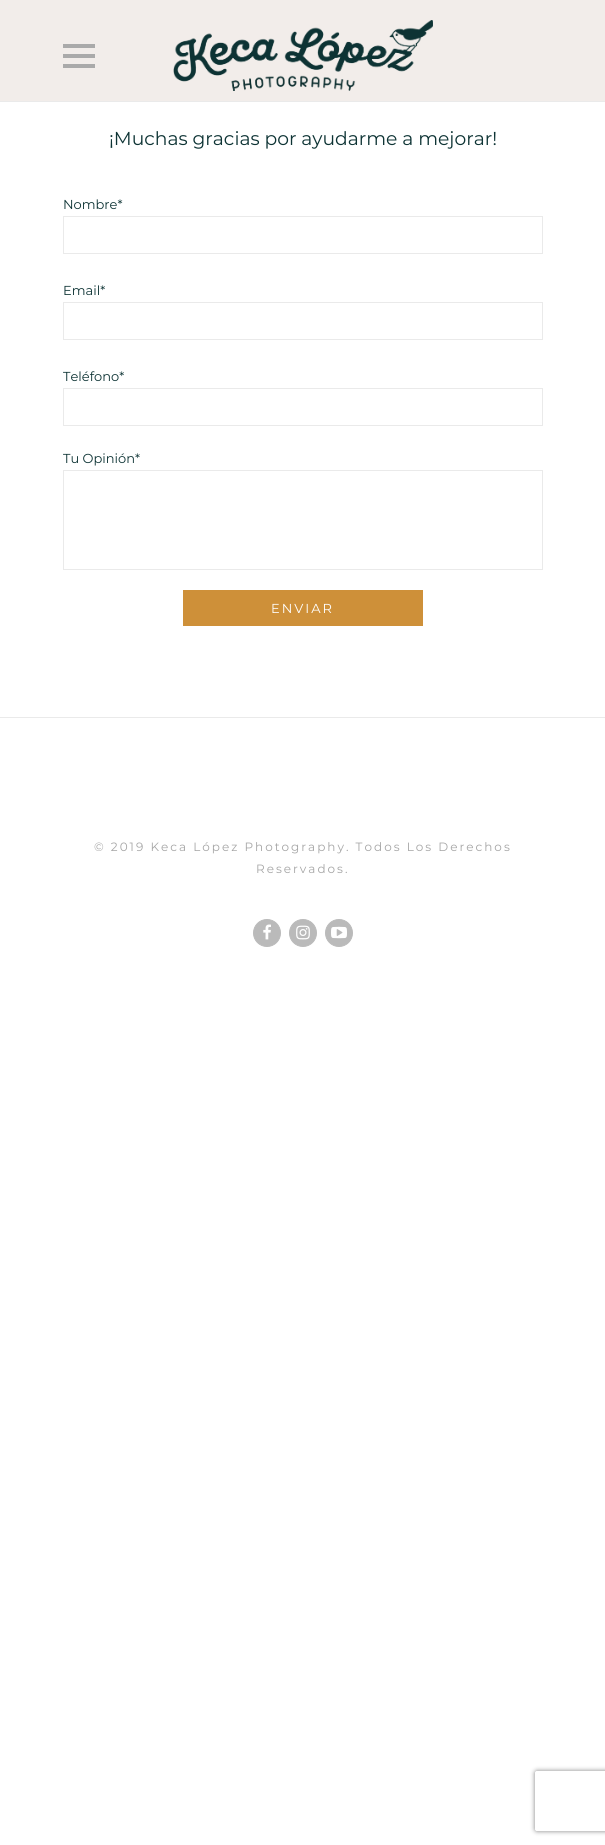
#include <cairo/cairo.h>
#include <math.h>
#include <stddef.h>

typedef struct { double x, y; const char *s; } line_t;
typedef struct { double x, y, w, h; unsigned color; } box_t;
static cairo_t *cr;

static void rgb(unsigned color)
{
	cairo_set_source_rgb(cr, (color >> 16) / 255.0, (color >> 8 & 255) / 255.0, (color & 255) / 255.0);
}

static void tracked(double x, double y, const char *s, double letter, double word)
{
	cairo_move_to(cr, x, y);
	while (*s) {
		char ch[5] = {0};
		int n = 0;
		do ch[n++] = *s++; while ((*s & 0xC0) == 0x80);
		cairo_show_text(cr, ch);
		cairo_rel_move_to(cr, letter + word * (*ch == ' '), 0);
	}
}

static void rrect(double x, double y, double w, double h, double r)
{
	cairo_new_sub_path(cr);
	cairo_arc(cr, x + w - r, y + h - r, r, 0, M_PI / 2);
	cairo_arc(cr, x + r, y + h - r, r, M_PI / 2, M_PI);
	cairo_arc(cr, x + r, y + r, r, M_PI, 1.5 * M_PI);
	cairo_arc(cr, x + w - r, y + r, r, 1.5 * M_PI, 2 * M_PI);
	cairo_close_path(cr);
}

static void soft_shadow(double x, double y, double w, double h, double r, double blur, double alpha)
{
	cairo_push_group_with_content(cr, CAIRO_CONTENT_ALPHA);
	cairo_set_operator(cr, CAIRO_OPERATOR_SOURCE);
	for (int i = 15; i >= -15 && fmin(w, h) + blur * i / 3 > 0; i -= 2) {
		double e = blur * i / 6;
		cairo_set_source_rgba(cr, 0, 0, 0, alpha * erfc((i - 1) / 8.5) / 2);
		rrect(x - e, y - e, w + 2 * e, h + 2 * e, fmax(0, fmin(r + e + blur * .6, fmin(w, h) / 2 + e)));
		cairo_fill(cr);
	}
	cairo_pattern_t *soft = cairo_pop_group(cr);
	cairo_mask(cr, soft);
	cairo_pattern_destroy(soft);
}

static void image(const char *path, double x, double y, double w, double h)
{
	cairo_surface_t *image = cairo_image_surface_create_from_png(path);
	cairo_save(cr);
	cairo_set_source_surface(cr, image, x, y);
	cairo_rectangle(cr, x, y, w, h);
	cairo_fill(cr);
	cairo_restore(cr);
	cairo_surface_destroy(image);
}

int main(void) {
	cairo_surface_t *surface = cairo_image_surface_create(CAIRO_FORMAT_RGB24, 605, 1845);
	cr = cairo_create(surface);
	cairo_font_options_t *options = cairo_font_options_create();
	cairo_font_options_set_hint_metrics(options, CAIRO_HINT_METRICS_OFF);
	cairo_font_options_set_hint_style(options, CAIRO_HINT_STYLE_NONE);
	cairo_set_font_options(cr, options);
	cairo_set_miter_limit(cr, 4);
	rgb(0xffffff);
	cairo_paint(cr);
	{
		static const box_t items[] = {
			{0, 0, 605, 101, 0xf2edea},
			{0, 101, 605, 1, 0xeaeaea},
			{63, 44, 32, 4, 0xaaaaaa},
			{63, 54, 32, 4, 0xaaaaaa},
			{63, 64, 32, 4, 0xaaaaaa},
		};
		for (size_t i = 0; i < sizeof items / sizeof *items; i++) {
			rgb(items[i].color);
			cairo_rectangle(cr, items[i].x, items[i].y, items[i].w, items[i].h);
			cairo_fill(cr);
		}
	}
	image("img/1.png", 173, 20, 260, 71);
	cairo_rectangle(cr, 63.5, 216.5, 479, 37);
	rgb(0xeaeaea);
	cairo_set_line_width(cr, 1);
	cairo_stroke(cr);
	cairo_rectangle(cr, 63.5, 302.5, 479, 37);
	cairo_stroke(cr);
	cairo_rectangle(cr, 63.5, 388.5, 479, 37);
	cairo_stroke(cr);
	cairo_rectangle(cr, 63.5, 470.5, 479, 99);
	cairo_stroke(cr);
	rgb(0xce9039);
	cairo_rectangle(cr, 183, 590, 240, 36);
	cairo_fill(cr);
	rgb(0xeaeaea);
	cairo_rectangle(cr, 0, 717, 605, 1);
	cairo_fill(cr);
	rgb(0xbababa);
	cairo_arc(cr, 267, 933, 13.5, 0, 2 * M_PI);
	cairo_fill_preserve(cr);
	cairo_stroke(cr);
	image("img/2.png", 263, 924, 8, 16);
	cairo_arc(cr, 303, 933, 13.5, 0, 2 * M_PI);
	cairo_fill_preserve(cr);
	cairo_stroke(cr);
	image("img/3.png", 296, 925, 14, 15);
	cairo_arc(cr, 339, 933, 13.5, 0, 2 * M_PI);
	cairo_fill_preserve(cr);
	cairo_stroke(cr);
	image("img/4.png", 331, 926, 16, 13);
	cairo_save(cr);
	cairo_set_fill_rule(cr, CAIRO_FILL_RULE_EVEN_ODD);
	cairo_new_path(cr);
	cairo_move_to(cr, 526, 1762);
	cairo_line_to(cr, 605, 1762);
	cairo_line_to(cr, 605, 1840);
	cairo_line_to(cr, 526, 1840);
	cairo_close_path(cr);
	cairo_move_to(cr, 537, 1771);
	cairo_line_to(cr, 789, 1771);
	cairo_curve_to(cr, 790, 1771, 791, 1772, 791, 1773);
	cairo_line_to(cr, 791, 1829);
	cairo_curve_to(cr, 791, 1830, 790, 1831, 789, 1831);
	cairo_line_to(cr, 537, 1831);
	cairo_curve_to(cr, 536, 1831, 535, 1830, 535, 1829);
	cairo_line_to(cr, 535, 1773);
	cairo_curve_to(cr, 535, 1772, 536, 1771, 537, 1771);
	cairo_close_path(cr);
	cairo_clip(cr);
	rgb(0x808080);
	soft_shadow(535, 1771, 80, 60, 2, 2.5, 1);
	cairo_restore(cr);
	cairo_select_font_face(cr, "Montserrat", CAIRO_FONT_SLANT_NORMAL, CAIRO_FONT_WEIGHT_NORMAL);
	cairo_set_font_size(cr, 18.7);
	rgb(0x0d3334);
	cairo_move_to(cr, 109, 145);
	cairo_show_text(cr, "¡Muchas gracias por ayudarme a mejorar!");
	cairo_set_font_size(cr, 13);
	{
		static const line_t items[] = {
			{63, 209, "Nombre*"},
			{63, 295, "Email*"},
			{63, 381, "Teléfono*"},
			{63, 463, "Tu Opinión*"},
		};
		for (size_t i = 0; i < sizeof items / sizeof *items; i++) {
			cairo_move_to(cr, items[i].x, items[i].y);
			cairo_show_text(cr, items[i].s);
		}
	}
	rgb(0xffffff);
	tracked(271, 613, "ENVIAR", 2, 0);
	cairo_set_font_size(cr, 12);
	rgb(0xa5a5a5);
	tracked(94, 851, "© 2019 Keca López Photography. Todos Los Derechos", 2, 0);
	tracked(256, 873, "Reservados.", 2, 0);
	cairo_surface_write_to_png(surface, "page.png");
	cairo_font_options_destroy(options);
	cairo_destroy(cr);
	cairo_surface_destroy(surface);
	return 0;
}
